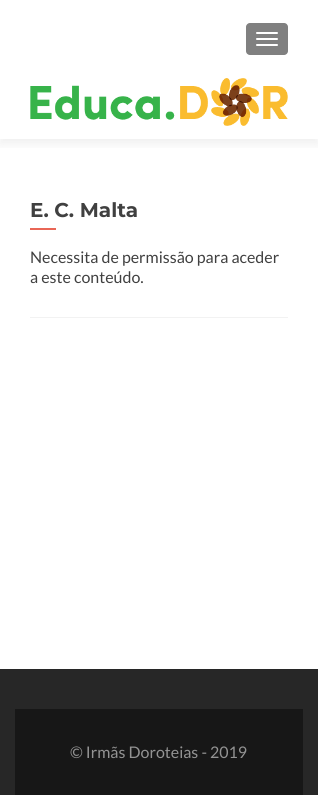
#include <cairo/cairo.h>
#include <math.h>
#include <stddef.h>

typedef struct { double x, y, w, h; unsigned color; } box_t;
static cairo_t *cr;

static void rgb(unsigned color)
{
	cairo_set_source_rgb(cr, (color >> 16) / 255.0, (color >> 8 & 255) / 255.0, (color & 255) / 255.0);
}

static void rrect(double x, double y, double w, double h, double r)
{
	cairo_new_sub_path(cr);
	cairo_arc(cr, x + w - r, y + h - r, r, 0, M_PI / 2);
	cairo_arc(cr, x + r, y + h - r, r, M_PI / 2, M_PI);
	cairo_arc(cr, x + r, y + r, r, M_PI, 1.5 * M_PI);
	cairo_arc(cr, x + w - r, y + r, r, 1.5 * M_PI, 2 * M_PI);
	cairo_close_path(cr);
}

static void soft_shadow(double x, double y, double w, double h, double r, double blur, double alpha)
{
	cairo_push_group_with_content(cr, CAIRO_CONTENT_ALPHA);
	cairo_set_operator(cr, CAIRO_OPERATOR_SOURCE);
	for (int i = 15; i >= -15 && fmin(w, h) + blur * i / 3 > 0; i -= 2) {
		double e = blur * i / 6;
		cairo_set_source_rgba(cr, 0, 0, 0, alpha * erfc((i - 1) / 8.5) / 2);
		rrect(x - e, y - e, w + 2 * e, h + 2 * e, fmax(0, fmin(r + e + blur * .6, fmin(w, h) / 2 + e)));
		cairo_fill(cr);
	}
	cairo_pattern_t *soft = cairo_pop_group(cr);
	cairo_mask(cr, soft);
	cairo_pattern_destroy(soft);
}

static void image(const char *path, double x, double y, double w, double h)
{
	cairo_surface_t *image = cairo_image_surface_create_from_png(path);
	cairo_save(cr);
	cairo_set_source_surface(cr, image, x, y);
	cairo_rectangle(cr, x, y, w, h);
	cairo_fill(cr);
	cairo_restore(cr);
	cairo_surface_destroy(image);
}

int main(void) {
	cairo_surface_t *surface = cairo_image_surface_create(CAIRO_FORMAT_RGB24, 318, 795);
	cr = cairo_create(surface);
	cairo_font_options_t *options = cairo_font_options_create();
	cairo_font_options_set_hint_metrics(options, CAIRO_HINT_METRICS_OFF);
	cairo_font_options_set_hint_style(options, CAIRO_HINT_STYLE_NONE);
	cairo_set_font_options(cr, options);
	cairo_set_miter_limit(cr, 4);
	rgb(0xffffff);
	cairo_paint(cr);
	cairo_save(cr);
	cairo_rectangle(cr, 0, 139, 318, 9);
	cairo_clip(cr);
	rgb(0x323232);
	soft_shadow(0, 5, 318, 139, 0, 5.5, 0.08);
	cairo_restore(cr);
	rgb(0x808080);
	rrect(246, 23, 42, 32, 4);
	cairo_fill(cr);
	rgb(0xffffff);
	rrect(256, 32, 22, 2, 1);
	cairo_fill(cr);
	rrect(256, 38, 22, 2, 1);
	cairo_fill(cr);
	rrect(256, 44, 22, 2, 1);
	cairo_fill(cr);
	image("img/1.png", 30, 78, 258, 48);
	{
		static const box_t items[] = {
			{30, 317, 258, 1, 0xf2f2f2},
			{30, 228, 26, 2, 0xe96656},
			{0, 669, 318, 126, 0x272727},
			{15, 709, 288, 86, 0x171717},
		};
		for (size_t i = 0; i < sizeof items / sizeof *items; i++) {
			rgb(items[i].color);
			cairo_rectangle(cr, items[i].x, items[i].y, items[i].w, items[i].h);
			cairo_fill(cr);
		}
	}
	cairo_select_font_face(cr, "Montserrat", CAIRO_FONT_SLANT_NORMAL, CAIRO_FONT_WEIGHT_BOLD);
	cairo_set_font_size(cr, 20);
	rgb(0x404040);
	cairo_move_to(cr, 30, 217);
	cairo_show_text(cr, "E. C. Malta");
	cairo_select_font_face(cr, "Lato", CAIRO_FONT_SLANT_NORMAL, CAIRO_FONT_WEIGHT_NORMAL);
	cairo_set_font_size(cr, 16);
	cairo_move_to(cr, 30, 263);
	cairo_show_text(cr, "Necessita de permissão para aceder");
	cairo_move_to(cr, 30, 283);
	cairo_show_text(cr, "a este conteúdo.");
	rgb(0x939393);
	cairo_move_to(cr, 70, 758);
	cairo_show_text(cr, "© Irmãs Doroteias - 2019");
	cairo_surface_write_to_png(surface, "page.png");
	cairo_font_options_destroy(options);
	cairo_destroy(cr);
	cairo_surface_destroy(surface);
	return 0;
}
